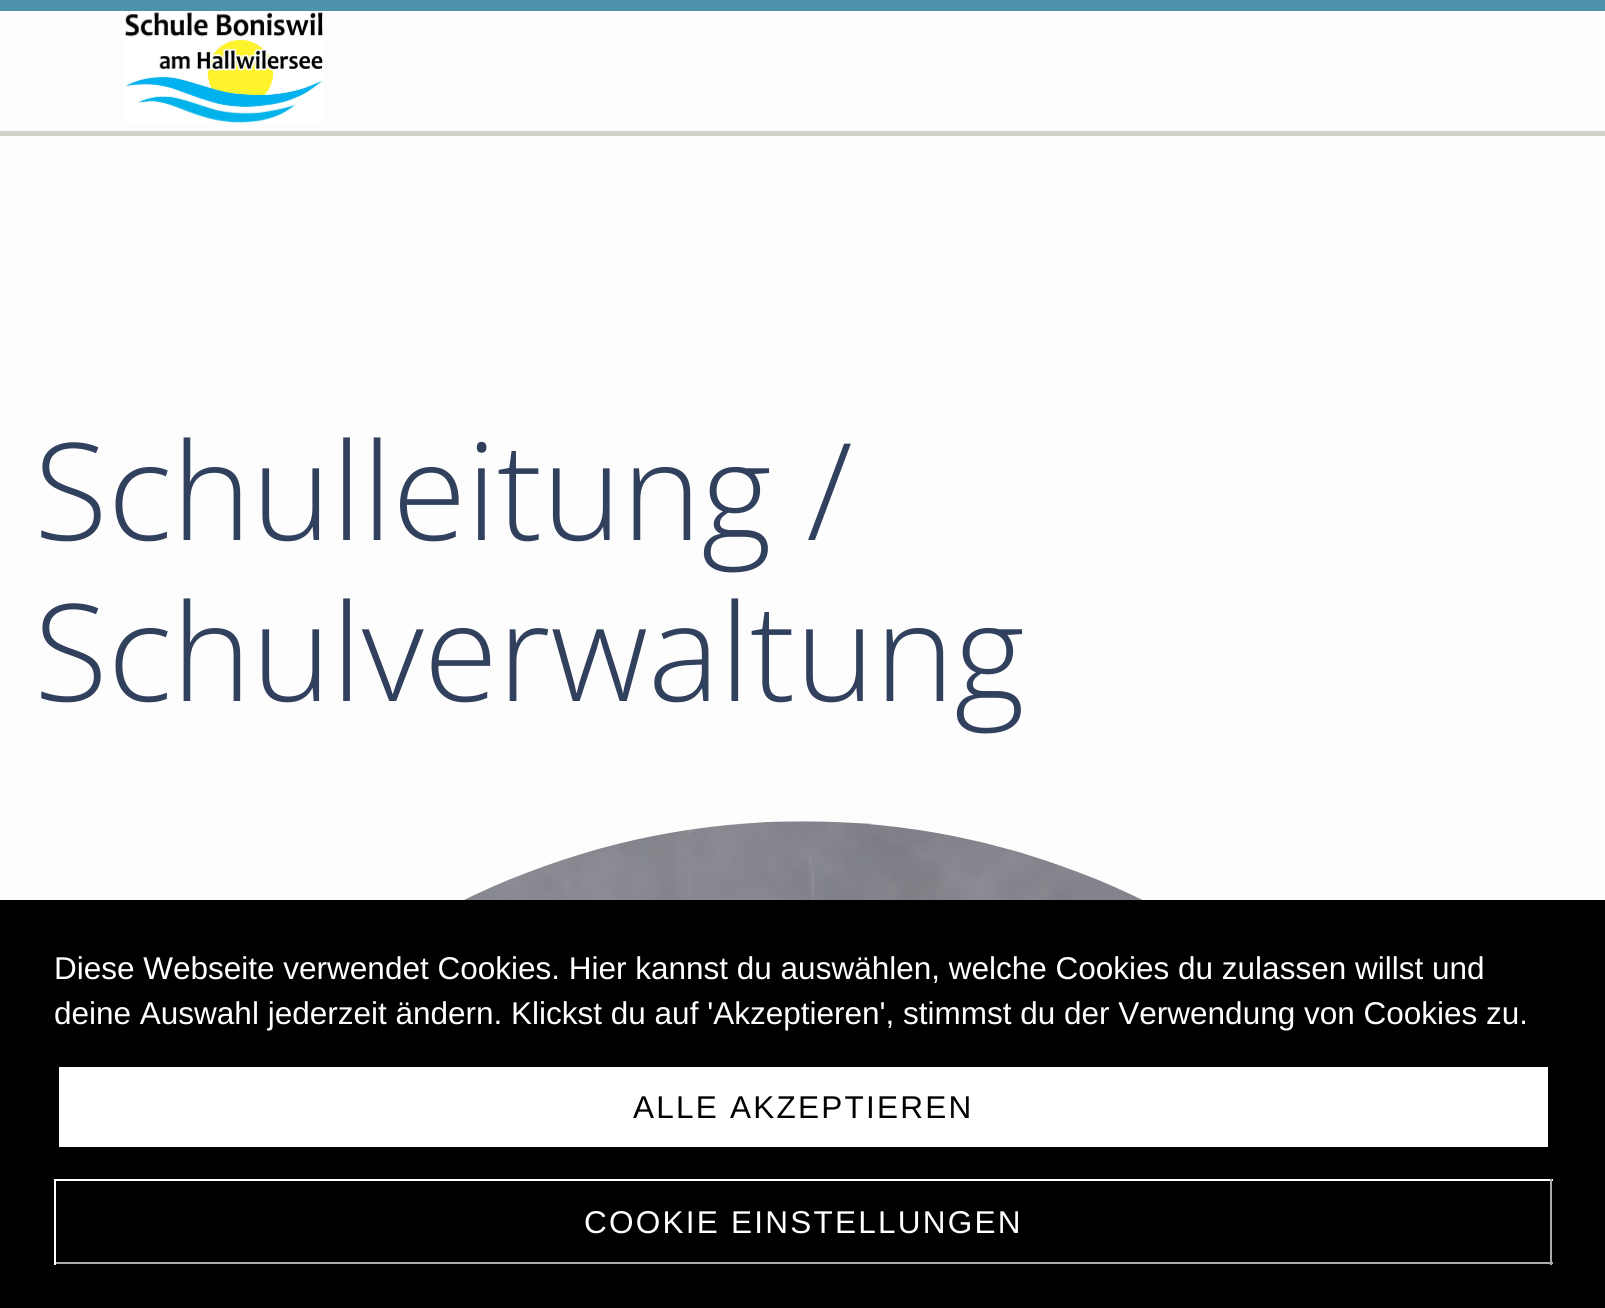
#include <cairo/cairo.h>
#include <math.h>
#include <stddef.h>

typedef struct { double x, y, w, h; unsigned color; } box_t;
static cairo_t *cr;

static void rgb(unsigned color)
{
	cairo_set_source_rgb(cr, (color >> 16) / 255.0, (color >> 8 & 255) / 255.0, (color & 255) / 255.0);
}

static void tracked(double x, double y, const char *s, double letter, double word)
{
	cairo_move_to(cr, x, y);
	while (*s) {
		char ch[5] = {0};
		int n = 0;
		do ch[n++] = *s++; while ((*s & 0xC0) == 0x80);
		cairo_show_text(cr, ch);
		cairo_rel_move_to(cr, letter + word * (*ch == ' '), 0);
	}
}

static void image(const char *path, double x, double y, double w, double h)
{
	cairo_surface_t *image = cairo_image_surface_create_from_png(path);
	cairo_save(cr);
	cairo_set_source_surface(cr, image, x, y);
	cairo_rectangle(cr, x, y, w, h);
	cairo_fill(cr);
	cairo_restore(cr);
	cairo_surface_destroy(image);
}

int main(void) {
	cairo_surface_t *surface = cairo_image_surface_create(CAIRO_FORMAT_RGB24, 1605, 1308);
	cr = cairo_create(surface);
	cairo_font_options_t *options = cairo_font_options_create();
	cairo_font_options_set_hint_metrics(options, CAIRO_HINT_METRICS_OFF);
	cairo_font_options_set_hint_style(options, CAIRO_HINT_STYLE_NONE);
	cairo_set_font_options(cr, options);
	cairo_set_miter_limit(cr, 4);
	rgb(0xfdfdfd);
	cairo_paint(cr);
	rgb(0x4d93ad);
	cairo_rectangle(cr, 0, 0, 1605, 11);
	cairo_fill(cr);
	rgb(0xd1d1cc);
	cairo_rectangle(cr, 0, 131, 1605, 5);
	cairo_fill(cr);
	image("img/1.png", 124, 12, 199, 112);
	image("img/2.png", 464, 821, 679, 79);
	{
		static const box_t items[] = {
			{0, 900, 1605, 408, 0x000000},
			{59, 1067, 1489, 80, 0xffffff},
			{54, 1179, 1499, 2, 0xffffff},
			{1550, 1179, 2, 86, 0xaaaaaa},
			{54, 1262, 1499, 2, 0xaaaaaa},
			{54, 1179, 2, 86, 0xffffff},
		};
		for (size_t i = 0; i < sizeof items / sizeof *items; i++) {
			rgb(items[i].color);
			cairo_rectangle(cr, items[i].x, items[i].y, items[i].w, items[i].h);
			cairo_fill(cr);
		}
	}
	cairo_select_font_face(cr, "Open Sans Light", CAIRO_FONT_SLANT_NORMAL, CAIRO_FONT_WEIGHT_NORMAL);
	cairo_set_font_size(cr, 135);
	rgb(0x31405d);
	cairo_move_to(cr, 34, 540);
	cairo_show_text(cr, "Schulleitung /");
	cairo_move_to(cr, 34, 701);
	cairo_show_text(cr, "Schulverwaltung");
	cairo_select_font_face(cr, "Liberation Sans", CAIRO_FONT_SLANT_NORMAL, CAIRO_FONT_WEIGHT_NORMAL);
	cairo_set_font_size(cr, 31.5);
	rgb(0xffffff);
	cairo_move_to(cr, 54, 979);
	cairo_show_text(cr, "Diese Webseite verwendet Cookies. Hier kannst du auswählen, welche Cookies du zulassen willst und");
	cairo_move_to(cr, 54, 1024);
	cairo_show_text(cr, "deine Auswahl jederzeit ändern. Klickst du auf 'Akzeptieren', stimmst du der Verwendung von Cookies zu.");
	rgb(0x000000);
	tracked(633, 1118, "ALLE AKZEPTIEREN", 2.25, 0);
	rgb(0xffffff);
	tracked(584, 1233, "COOKIE EINSTELLUNGEN", 2.25, 0);
	cairo_surface_write_to_png(surface, "page.png");
	cairo_font_options_destroy(options);
	cairo_destroy(cr);
	cairo_surface_destroy(surface);
	return 0;
}
